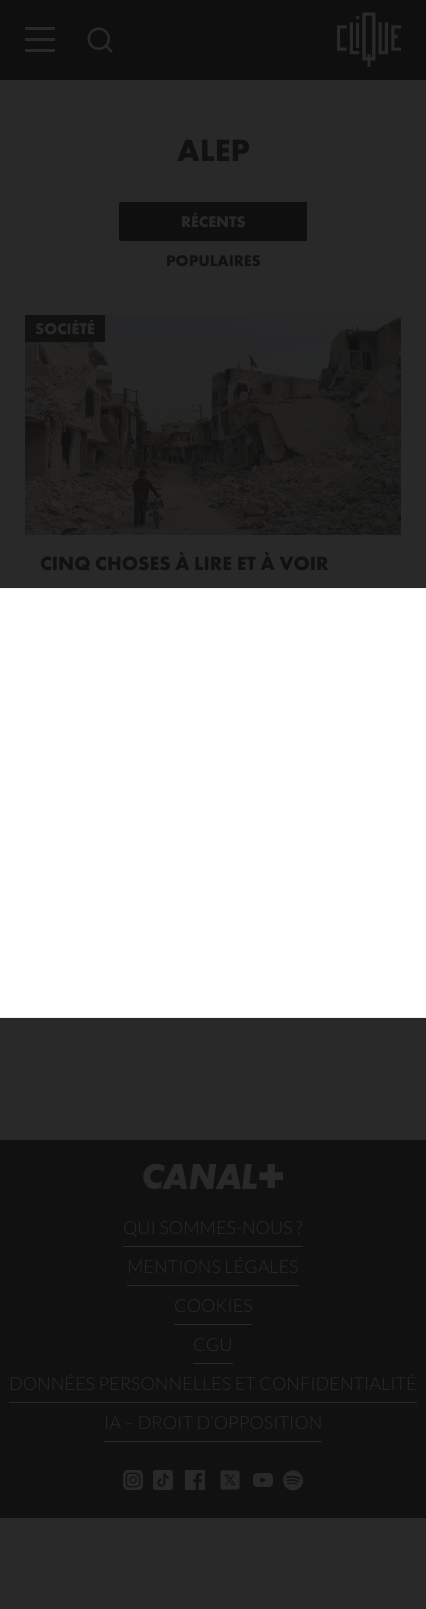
#include <cairo/cairo.h>
#include <math.h>
#include <stddef.h>

typedef struct { double x, y; const char *s; } line_t;
typedef struct { double x, y, w, h; unsigned color; } box_t;
static cairo_t *cr;

static void rgb(unsigned color)
{
	cairo_set_source_rgb(cr, (color >> 16) / 255.0, (color >> 8 & 255) / 255.0, (color & 255) / 255.0);
}

static void image(const char *path, double x, double y, double w, double h)
{
	cairo_surface_t *image = cairo_image_surface_create_from_png(path);
	cairo_save(cr);
	cairo_set_source_surface(cr, image, x, y);
	cairo_rectangle(cr, x, y, w, h);
	cairo_fill(cr);
	cairo_restore(cr);
	cairo_surface_destroy(image);
}

int main(void) {
	cairo_surface_t *surface = cairo_image_surface_create(CAIRO_FORMAT_RGB24, 426, 1609);
	cr = cairo_create(surface);
	cairo_font_options_t *options = cairo_font_options_create();
	cairo_font_options_set_hint_metrics(options, CAIRO_HINT_METRICS_OFF);
	cairo_font_options_set_hint_style(options, CAIRO_HINT_STYLE_NONE);
	cairo_set_font_options(cr, options);
	cairo_set_miter_limit(cr, 4);
	rgb(0x292929);
	cairo_paint(cr);
	{
		static const box_t items[] = {
			{0, 0, 426, 80, 0x0f0f0f},
			{25, 49, 30, 3, 0x292929},
			{25, 38, 30, 3, 0x292929},
			{25, 27, 30, 3, 0x292929},
		};
		for (size_t i = 0; i < sizeof items / sizeof *items; i++) {
			rgb(items[i].color);
			cairo_rectangle(cr, items[i].x, items[i].y, items[i].w, items[i].h);
			cairo_fill(cr);
		}
	}
	image("img/1.png", 87, 27, 26, 26);
	image("img/2.png", 337, 12, 64, 55);
	rgb(0x0f0f0f);
	cairo_new_path(cr);
	cairo_move_to(cr, 121, 202);
	cairo_line_to(cr, 307, 202);
	cairo_line_to(cr, 307, 241);
	cairo_line_to(cr, 121, 241);
	cairo_curve_to(cr, 120, 241, 119, 240, 119, 239);
	cairo_line_to(cr, 119, 204);
	cairo_curve_to(cr, 119, 203, 120, 202, 121, 202);
	cairo_close_path(cr);
	cairo_fill(cr);
	image("img/3.png", 25, 315, 376, 220);
	rgb(0x111111);
	cairo_rectangle(cr, 25, 315, 80, 27);
	cairo_fill(cr);
	rgb(0xffffff);
	cairo_rectangle(cr, -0.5, 588.5, 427, 429);
	cairo_fill_preserve(cr);
	rgb(0xeeeeee);
	cairo_set_line_width(cr, 1);
	cairo_stroke(cr);
	rgb(0x111111);
	cairo_rectangle(cr, 0, 1140, 426, 378);
	cairo_fill(cr);
	image("img/4.png", 143, 1164, 140, 25);
	{
		static const box_t items[] = {
			{123, 1246, 180, 1, 0x292929},
			{127, 1285, 172, 1, 0x292929},
			{174, 1324, 78, 1, 0x292929},
			{193, 1363, 40, 1, 0x292929},
			{9, 1402, 408, 1, 0x292929},
			{104, 1441, 218, 1, 0x292929},
		};
		for (size_t i = 0; i < sizeof items / sizeof *items; i++) {
			rgb(items[i].color);
			cairo_rectangle(cr, items[i].x, items[i].y, items[i].w, items[i].h);
			cairo_fill(cr);
		}
	}
	image("img/5.png", 123, 1470, 20, 20);
	image("img/6.png", 153, 1470, 20, 20);
	image("img/7.png", 185, 1470, 20, 20);
	image("img/8.png", 220, 1470, 20, 20);
	image("img/9.png", 253, 1473, 20, 14);
	image("img/10.png", 283, 1470, 20, 21);
	cairo_select_font_face(cr, "Futura PT", CAIRO_FONT_SLANT_NORMAL, CAIRO_FONT_WEIGHT_BOLD);
	cairo_set_font_size(cr, 32);
	rgb(0x111111);
	cairo_move_to(cr, 177, 161);
	cairo_show_text(cr, "ALEP");
	cairo_set_font_size(cr, 16);
	rgb(0x292929);
	cairo_move_to(cr, 181, 227);
	cairo_show_text(cr, "RÉCENTS");
	rgb(0x111111);
	cairo_move_to(cr, 166, 266);
	cairo_show_text(cr, "POPULAIRES");
	rgb(0x292929);
	cairo_move_to(cr, 35, 334);
	cairo_show_text(cr, "SOCIÉTÉ");
	cairo_set_font_size(cr, 20);
	rgb(0x111111);
	cairo_move_to(cr, 40, 570);
	cairo_show_text(cr, "CINQ CHOSES À LIRE ET À VOIR");
	cairo_select_font_face(cr, "Lato Light", CAIRO_FONT_SLANT_NORMAL, CAIRO_FONT_WEIGHT_NORMAL);
	cairo_set_font_size(cr, 18);
	rgb(0x292929);
	{
		static const line_t items[] = {
			{123, 1234, "QUI SOMMES-NOUS ?"},
			{127, 1273, "MENTIONS LÉGALES"},
			{174, 1312, "COOKIES"},
			{193, 1351, "CGU"},
			{9, 1390, "DONNÉES PERSONNELLES ET CONFIDENTIALITÉ"},
			{104, 1429, "IA – DROIT D’OPPOSITION"},
		};
		for (size_t i = 0; i < sizeof items / sizeof *items; i++) {
			cairo_move_to(cr, items[i].x, items[i].y);
			cairo_show_text(cr, items[i].s);
		}
	}
	cairo_surface_write_to_png(surface, "page.png");
	cairo_font_options_destroy(options);
	cairo_destroy(cr);
	cairo_surface_destroy(surface);
	return 0;
}
